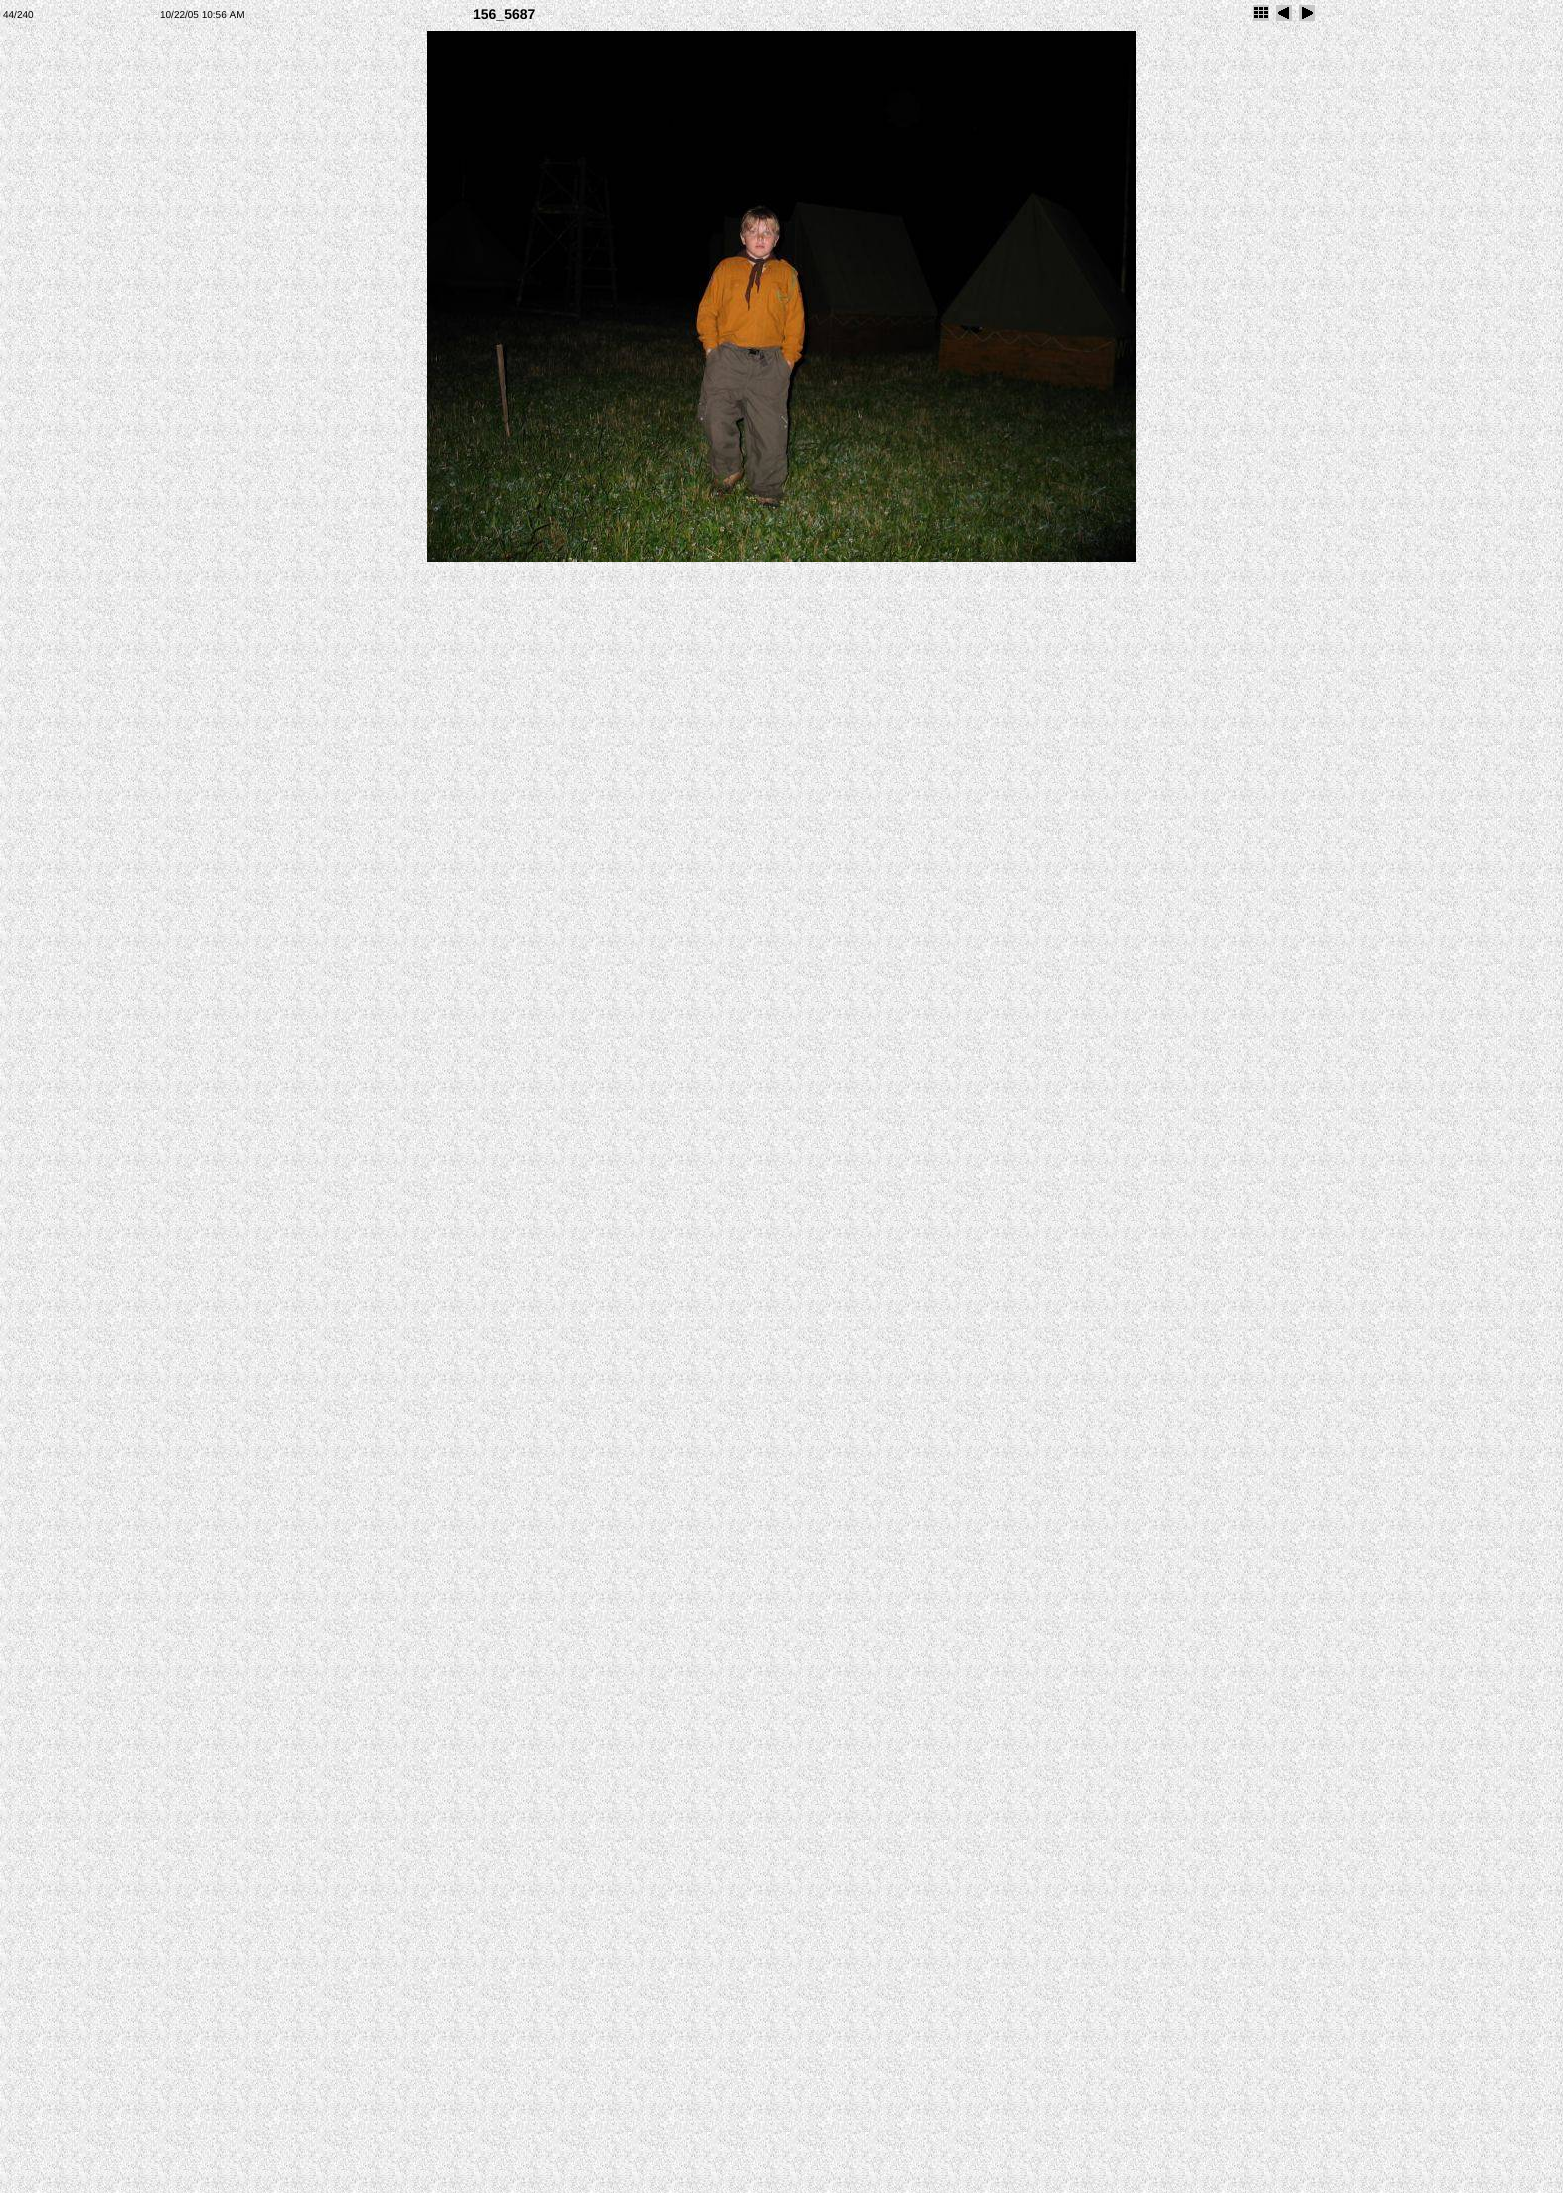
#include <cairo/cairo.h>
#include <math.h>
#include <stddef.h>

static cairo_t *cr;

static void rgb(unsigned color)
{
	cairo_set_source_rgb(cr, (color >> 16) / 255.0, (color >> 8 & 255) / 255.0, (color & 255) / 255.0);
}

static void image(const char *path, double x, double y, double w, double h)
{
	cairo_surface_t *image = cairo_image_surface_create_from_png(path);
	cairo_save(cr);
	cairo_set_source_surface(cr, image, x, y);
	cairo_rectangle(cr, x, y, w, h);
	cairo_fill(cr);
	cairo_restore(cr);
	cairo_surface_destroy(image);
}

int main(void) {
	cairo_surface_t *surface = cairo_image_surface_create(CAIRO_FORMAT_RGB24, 1563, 2193);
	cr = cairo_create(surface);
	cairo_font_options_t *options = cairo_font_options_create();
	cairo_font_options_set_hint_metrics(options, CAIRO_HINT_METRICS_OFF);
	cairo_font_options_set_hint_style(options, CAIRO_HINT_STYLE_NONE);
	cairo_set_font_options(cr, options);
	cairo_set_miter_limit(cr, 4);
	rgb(0xffffff);
	cairo_paint(cr);
	image("img/1.png", 0, 0, 1563, 2193);
	image("img/2.png", 1253, 5, 16, 16);
	image("img/3.png", 1276, 5, 16, 16);
	image("img/4.png", 1299, 5, 16, 16);
	image("img/5.png", 427, 31, 709, 531);
	cairo_select_font_face(cr, "Liberation Sans", CAIRO_FONT_SLANT_NORMAL, CAIRO_FONT_WEIGHT_NORMAL);
	cairo_set_font_size(cr, 10);
	rgb(0x000000);
	cairo_move_to(cr, 3, 18);
	cairo_show_text(cr, "44/240");
	cairo_move_to(cr, 160, 18);
	cairo_show_text(cr, "10/22/05 10:56 AM");
	cairo_select_font_face(cr, "Liberation Sans", CAIRO_FONT_SLANT_NORMAL, CAIRO_FONT_WEIGHT_BOLD);
	cairo_set_font_size(cr, 14);
	cairo_move_to(cr, 473, 19);
	cairo_show_text(cr, "156_5687");
	cairo_surface_write_to_png(surface, "page.png");
	cairo_font_options_destroy(options);
	cairo_destroy(cr);
	cairo_surface_destroy(surface);
	return 0;
}
